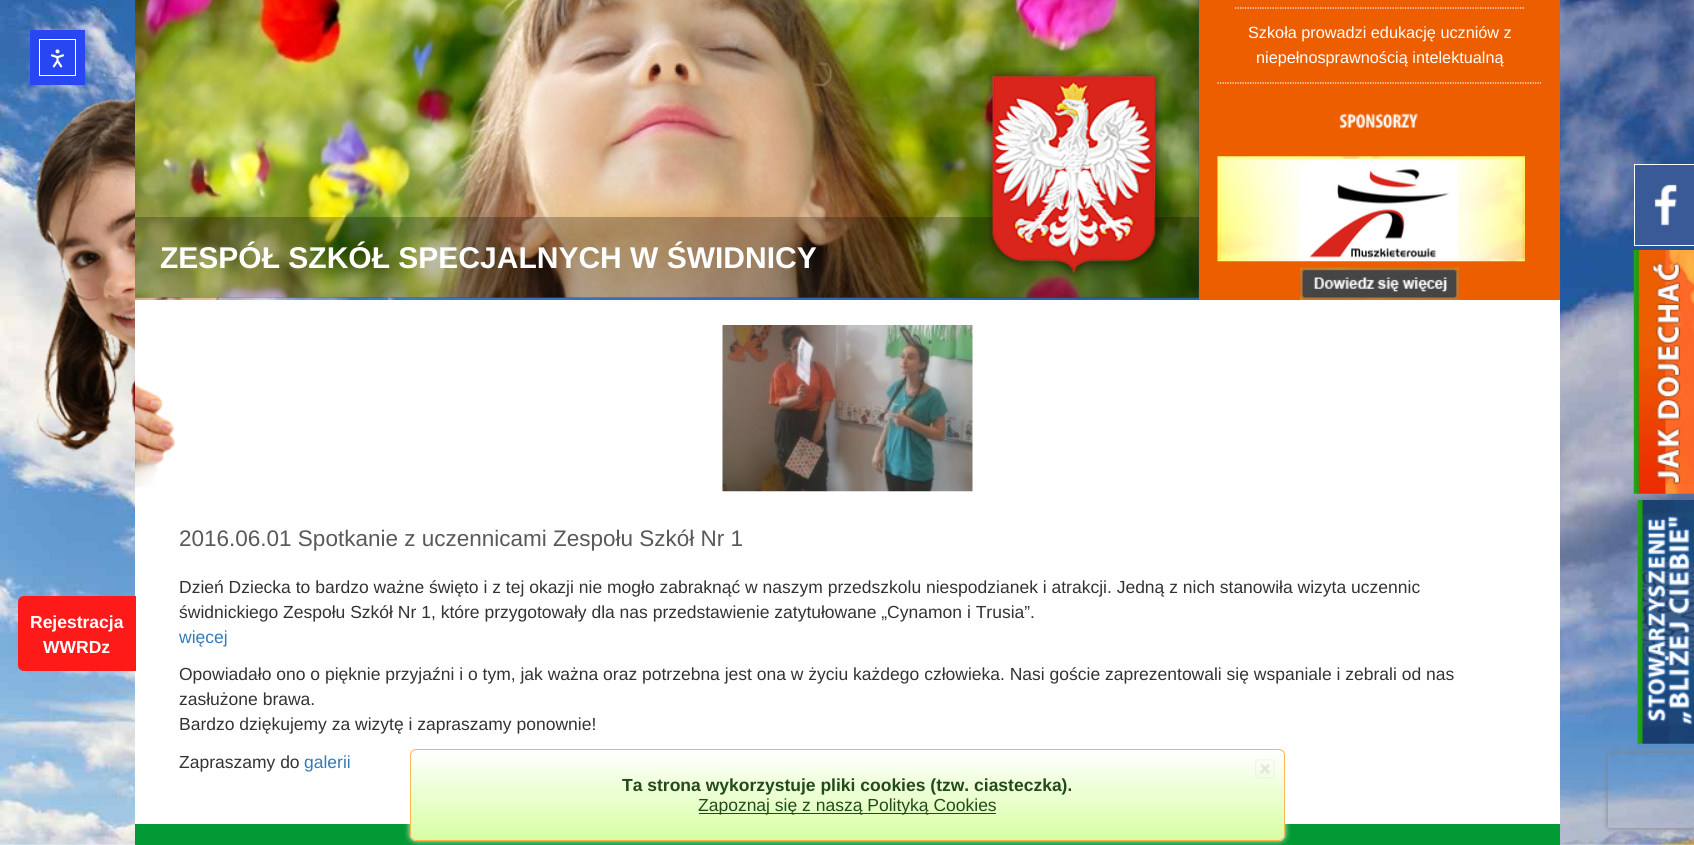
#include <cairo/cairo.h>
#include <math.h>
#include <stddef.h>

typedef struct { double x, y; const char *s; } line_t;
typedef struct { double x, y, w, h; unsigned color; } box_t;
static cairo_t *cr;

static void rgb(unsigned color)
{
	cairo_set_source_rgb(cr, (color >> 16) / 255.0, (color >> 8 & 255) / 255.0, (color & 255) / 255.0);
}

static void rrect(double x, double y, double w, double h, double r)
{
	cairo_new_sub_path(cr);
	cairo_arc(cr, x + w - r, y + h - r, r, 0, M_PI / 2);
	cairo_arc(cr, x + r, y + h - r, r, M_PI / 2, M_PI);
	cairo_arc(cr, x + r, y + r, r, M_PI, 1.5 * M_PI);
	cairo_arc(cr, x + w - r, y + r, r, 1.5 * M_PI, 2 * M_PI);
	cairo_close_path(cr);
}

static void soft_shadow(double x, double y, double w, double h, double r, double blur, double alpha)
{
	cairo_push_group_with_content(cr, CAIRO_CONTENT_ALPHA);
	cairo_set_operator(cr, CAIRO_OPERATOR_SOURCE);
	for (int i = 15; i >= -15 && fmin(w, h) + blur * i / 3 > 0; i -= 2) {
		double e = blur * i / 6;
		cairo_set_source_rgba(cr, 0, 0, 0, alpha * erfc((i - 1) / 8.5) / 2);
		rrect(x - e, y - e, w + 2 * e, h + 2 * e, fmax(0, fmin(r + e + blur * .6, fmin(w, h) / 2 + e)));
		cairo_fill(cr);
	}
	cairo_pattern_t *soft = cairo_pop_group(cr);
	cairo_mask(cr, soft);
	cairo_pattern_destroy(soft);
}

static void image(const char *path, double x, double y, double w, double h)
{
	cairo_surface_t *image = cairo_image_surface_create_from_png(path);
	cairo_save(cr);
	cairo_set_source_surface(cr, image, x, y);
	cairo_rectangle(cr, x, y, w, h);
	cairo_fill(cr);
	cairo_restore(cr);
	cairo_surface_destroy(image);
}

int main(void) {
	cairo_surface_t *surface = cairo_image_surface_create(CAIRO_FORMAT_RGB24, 1694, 845);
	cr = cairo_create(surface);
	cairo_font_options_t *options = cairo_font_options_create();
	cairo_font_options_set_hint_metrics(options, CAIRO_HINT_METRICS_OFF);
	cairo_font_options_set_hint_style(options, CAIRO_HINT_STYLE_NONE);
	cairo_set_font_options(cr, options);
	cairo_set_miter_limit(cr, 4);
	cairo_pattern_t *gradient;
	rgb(0xffffff);
	cairo_paint(cr);
	image("img/1.png", 0, 0, 1694, 845);
	image("img/2.png", 36, 97, 183, 355);
	rgb(0xed5e01);
	cairo_rectangle(cr, 1199, 0, 361, 300);
	cairo_fill(cr);
	cairo_new_path(cr);
	cairo_move_to(cr, 1235, 8);
	cairo_line_to(cr, 1524, 8);
	rgb(0xffffff);
	cairo_set_line_width(cr, 1.2);
	cairo_set_dash(cr, (double[]){1.25, 1.25}, 2, 0);
	cairo_stroke(cr);
	cairo_new_path(cr);
	cairo_move_to(cr, 1217.5, 83);
	cairo_line_to(cr, 1541, 83);
	cairo_stroke(cr);
	image("img/3.png", 1339, 113, 79, 16);
	image("img/4.png", 1217, 156, 308, 106);
	image("img/5.png", 1301, 162, 157, 97);
	image("img/6.png", 1300, 267, 159, 33);
	image("img/7.png", 135, 0, 1064, 298);
	cairo_set_source_rgba(cr, 0, 0, 0, 0.25);
	cairo_rectangle(cr, 135, 217, 1064, 81);
	cairo_fill(cr);
	image("img/8.png", 983, 67, 181, 212);
	{
		static const box_t items[] = {
			{1635, 165, 59, 80, 0x3a5a97},
			{1634, 164, 60, 1, 0xffffff},
			{1634, 245, 60, 1, 0xffffff},
			{1634, 164, 1, 82, 0xffffff},
		};
		for (size_t i = 0; i < sizeof items / sizeof *items; i++) {
			rgb(items[i].color);
			cairo_rectangle(cr, items[i].x, items[i].y, items[i].w, items[i].h);
			cairo_fill(cr);
		}
	}
	image("img/9.png", 1654, 184, 23, 42);
	image("img/10.png", 1633, 250, 61, 244);
	cairo_rectangle(cr, 135, 300, 1425, 524);
	cairo_fill(cr);
	rgb(0xff1a1a);
	cairo_new_path(cr);
	cairo_move_to(cr, 24, 596);
	cairo_line_to(cr, 136, 596);
	cairo_line_to(cr, 136, 671);
	cairo_line_to(cr, 24, 671);
	cairo_curve_to(cr, 20.5, 671, 18, 668.5, 18, 665);
	cairo_line_to(cr, 18, 602);
	cairo_curve_to(cr, 18, 598.5, 20.5, 596, 24, 596);
	cairo_close_path(cr);
	cairo_fill(cr);
	image("img/11.png", 135, 385, 40, 103);
	image("img/12.png", 722, 325, 251, 167);
	cairo_save(cr);
	cairo_set_fill_rule(cr, CAIRO_FILL_RULE_EVEN_ODD);
	cairo_new_path(cr);
	cairo_move_to(cr, 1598, 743);
	cairo_line_to(cr, 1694, 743);
	cairo_line_to(cr, 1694, 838);
	cairo_line_to(cr, 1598, 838);
	cairo_close_path(cr);
	cairo_move_to(cr, 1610.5, 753);
	cairo_line_to(cr, 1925.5, 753);
	cairo_curve_to(cr, 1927, 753, 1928, 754, 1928, 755.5);
	cairo_line_to(cr, 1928, 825.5);
	cairo_curve_to(cr, 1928, 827, 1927, 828, 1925.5, 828);
	cairo_line_to(cr, 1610.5, 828);
	cairo_curve_to(cr, 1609, 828, 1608, 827, 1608, 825.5);
	cairo_line_to(cr, 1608, 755.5);
	cairo_curve_to(cr, 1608, 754, 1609, 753, 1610.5, 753);
	cairo_close_path(cr);
	cairo_clip(cr);
	rgb(0x808080);
	soft_shadow(1608, 753, 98, 75, 2.5, 3, 1);
	cairo_restore(cr);
	image("img/13.png", 1637, 500, 57, 244);
	rgb(0x009933);
	cairo_rectangle(cr, 135, 824, 1425, 21);
	cairo_fill(cr);
	rgb(0x2847f3);
	cairo_rectangle(cr, 30, 30, 55, 55);
	cairo_fill(cr);
	cairo_rectangle(cr, 39.5, 39.5, 36, 36);
	rgb(0xffffff);
	cairo_set_line_width(cr, 1);
	cairo_set_dash(cr, NULL, 0, 0);
	cairo_stroke(cr);
	image("img/14.png", 50, 49, 14, 19);
	cairo_save(cr);
	cairo_set_fill_rule(cr, CAIRO_FILL_RULE_EVEN_ODD);
	cairo_new_path(cr);
	cairo_move_to(cr, 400, 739);
	cairo_line_to(cr, 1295, 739);
	cairo_line_to(cr, 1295, 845);
	cairo_line_to(cr, 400, 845);
	cairo_close_path(cr);
	cairo_move_to(cr, 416, 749);
	cairo_line_to(cr, 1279, 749);
	cairo_curve_to(cr, 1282.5, 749, 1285, 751.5, 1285, 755);
	cairo_line_to(cr, 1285, 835);
	cairo_curve_to(cr, 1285, 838.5, 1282.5, 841, 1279, 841);
	cairo_line_to(cr, 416, 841);
	cairo_curve_to(cr, 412.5, 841, 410, 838.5, 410, 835);
	cairo_line_to(cr, 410, 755);
	cairo_curve_to(cr, 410, 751.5, 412.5, 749, 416, 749);
	cairo_close_path(cr);
	cairo_clip(cr);
	rgb(0xffffff);
	soft_shadow(410, 749, 875, 92, 6, 3, 0.9);
	cairo_restore(cr);
	cairo_set_source_rgba(cr, 1, 1, 1, 0.9);
	rrect(410, 749, 875, 92, 6);
	cairo_fill(cr);
	cairo_save(cr);
	rrect(410, 749, 875, 92, 6);
	cairo_clip(cr);
	gradient = cairo_pattern_create_linear(848, 750, 848, 660);
	cairo_pattern_add_color_stop_rgba(gradient, 0, 0.851, 1, 0.647, 1);
	cairo_pattern_add_color_stop_rgba(gradient, 1, 1, 1, 1, 1);
	cairo_set_source(cr, gradient);
	cairo_pattern_destroy(gradient);
	cairo_rectangle(cr, 410, 749, 875, 1);
	cairo_fill(cr);
	gradient = cairo_pattern_create_linear(848, 840, 848, 750);
	cairo_pattern_add_color_stop_rgba(gradient, 0, 0.835, 1, 0.608, 0.9);
	cairo_pattern_add_color_stop_rgba(gradient, 1, 1, 1, 1, 0.9);
	cairo_set_source(cr, gradient);
	cairo_pattern_destroy(gradient);
	cairo_rectangle(cr, 410, 750, 875, 90);
	cairo_fill(cr);
	gradient = cairo_pattern_create_linear(848, 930, 848, 840);
	cairo_pattern_add_color_stop_rgba(gradient, 0, 0.753, 0.961, 0.569, 1);
	cairo_pattern_add_color_stop_rgba(gradient, 1, 0.902, 0.961, 0.922, 1);
	cairo_set_source(cr, gradient);
	cairo_pattern_destroy(gradient);
	cairo_rectangle(cr, 410, 840, 875, 1);
	cairo_fill(cr);
	cairo_restore(cr);
	rrect(410.5, 749.5, 874, 91, 5.5);
	cairo_set_source_rgba(cr, 0.992, 0.686, 0.263, 0.9);
	cairo_stroke(cr);
	image("img/15.png", 1255, 759, 20, 20);
	rgb(0x214b1a);
	cairo_rectangle(cr, 699, 813, 297, 1);
	cairo_fill(cr);
	cairo_select_font_face(cr, "Liberation Sans", CAIRO_FONT_SLANT_NORMAL, CAIRO_FONT_WEIGHT_NORMAL);
	cairo_set_font_size(cr, 16.25);
	rgb(0xffffff);
	cairo_move_to(cr, 1248, 38);
	cairo_show_text(cr, "Szkoła prowadzi edukację uczniów z");
	cairo_move_to(cr, 1256, 63);
	cairo_show_text(cr, "niepełnosprawnością intelektualną");
	cairo_select_font_face(cr, "Liberation Sans", CAIRO_FONT_SLANT_NORMAL, CAIRO_FONT_WEIGHT_BOLD);
	cairo_set_font_size(cr, 30);
	cairo_move_to(cr, 160, 268);
	cairo_show_text(cr, "ZESPÓŁ SZKÓŁ SPECJALNYCH W ŚWIDNICY");
	cairo_set_font_size(cr, 17.5);
	cairo_move_to(cr, 30, 628);
	cairo_show_text(cr, "Rejestracja");
	cairo_move_to(cr, 43, 653);
	cairo_show_text(cr, "WWRDz");
	cairo_select_font_face(cr, "Liberation Sans", CAIRO_FONT_SLANT_NORMAL, CAIRO_FONT_WEIGHT_NORMAL);
	cairo_set_font_size(cr, 22.5);
	rgb(0x595959);
	cairo_move_to(cr, 179, 546);
	cairo_show_text(cr, "2016.06.01 Spotkanie z uczennicami Zespołu Szkół Nr 1");
	cairo_set_font_size(cr, 17.5);
	rgb(0x333333);
	cairo_move_to(cr, 179, 593);
	cairo_show_text(cr, "Dzień Dziecka to bardzo ważne święto i z tej okazji nie mogło zabraknąć w naszym przedszkolu niespodzianek i atrakcji. Jedną z nich stanowiła wizyta uczennic");
	cairo_move_to(cr, 179, 618);
	cairo_show_text(cr, "świdnickiego Zespołu Szkół Nr 1, które przygotowały dla nas przedstawienie zatytułowane „Cynamon i Trusia”.");
	rgb(0x337ab7);
	cairo_move_to(cr, 179, 643);
	cairo_show_text(cr, "więcej");
	rgb(0x333333);
	{
		static const line_t items[] = {
			{179, 680, "Opowiadało ono o pięknie przyjaźni i o tym, jak ważna oraz potrzebna jest ona w życiu każdego człowieka. Nasi goście zaprezentowali się wspaniale i zebrali od nas"},
			{179, 705, "zasłużone brawa."},
			{179, 730, "Bardzo dziękujemy za wizytę i zapraszamy ponownie!"},
			{179, 768, "Zapraszamy do"},
		};
		for (size_t i = 0; i < sizeof items / sizeof *items; i++) {
			cairo_move_to(cr, items[i].x, items[i].y);
			cairo_show_text(cr, items[i].s);
		}
	}
	rgb(0x337ab7);
	cairo_move_to(cr, 304, 768);
	cairo_show_text(cr, "galerii");
	cairo_select_font_face(cr, "Liberation Sans", CAIRO_FONT_SLANT_NORMAL, CAIRO_FONT_WEIGHT_BOLD);
	rgb(0x214b1a);
	cairo_move_to(cr, 622, 791);
	cairo_show_text(cr, "Ta strona wykorzystuje pliki cookies (tzw. ciasteczka).");
	cairo_select_font_face(cr, "Liberation Sans", CAIRO_FONT_SLANT_NORMAL, CAIRO_FONT_WEIGHT_NORMAL);
	cairo_move_to(cr, 698, 811);
	cairo_show_text(cr, "Zapoznaj się z naszą Polityką Cookies");
	cairo_surface_write_to_png(surface, "page.png");
	cairo_font_options_destroy(options);
	cairo_destroy(cr);
	cairo_surface_destroy(surface);
	return 0;
}
